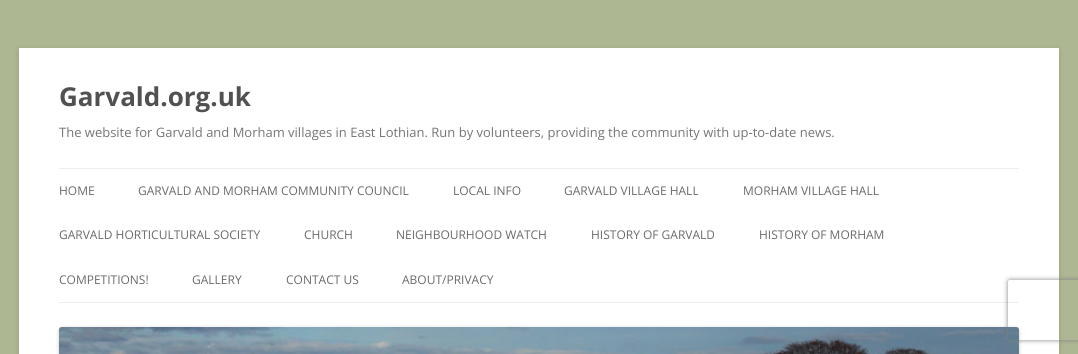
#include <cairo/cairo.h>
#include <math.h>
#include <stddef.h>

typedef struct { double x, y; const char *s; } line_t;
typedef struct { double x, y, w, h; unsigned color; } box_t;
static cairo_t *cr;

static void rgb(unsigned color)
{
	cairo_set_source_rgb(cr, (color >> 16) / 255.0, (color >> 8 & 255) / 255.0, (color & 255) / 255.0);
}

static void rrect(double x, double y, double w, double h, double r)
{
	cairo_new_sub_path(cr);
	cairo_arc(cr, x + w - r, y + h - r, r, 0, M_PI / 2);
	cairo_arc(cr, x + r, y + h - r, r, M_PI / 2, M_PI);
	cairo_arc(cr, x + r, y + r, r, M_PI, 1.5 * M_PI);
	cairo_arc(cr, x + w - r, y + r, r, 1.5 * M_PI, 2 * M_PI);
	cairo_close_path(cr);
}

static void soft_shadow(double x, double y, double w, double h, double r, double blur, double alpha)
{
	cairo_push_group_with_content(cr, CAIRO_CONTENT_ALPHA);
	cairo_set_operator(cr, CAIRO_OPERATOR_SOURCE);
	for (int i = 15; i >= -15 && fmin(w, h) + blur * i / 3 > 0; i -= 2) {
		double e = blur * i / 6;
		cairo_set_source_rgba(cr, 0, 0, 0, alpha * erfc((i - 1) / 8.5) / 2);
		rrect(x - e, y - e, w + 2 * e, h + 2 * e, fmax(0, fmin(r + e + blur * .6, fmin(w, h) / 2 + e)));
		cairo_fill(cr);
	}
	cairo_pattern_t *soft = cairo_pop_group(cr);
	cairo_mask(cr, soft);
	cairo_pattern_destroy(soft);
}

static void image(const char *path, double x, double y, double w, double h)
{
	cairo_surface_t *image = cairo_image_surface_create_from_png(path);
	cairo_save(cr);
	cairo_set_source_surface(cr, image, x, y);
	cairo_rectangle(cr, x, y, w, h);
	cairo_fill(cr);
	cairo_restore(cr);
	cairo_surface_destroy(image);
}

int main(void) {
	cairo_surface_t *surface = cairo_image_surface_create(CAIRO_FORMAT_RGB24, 1078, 354);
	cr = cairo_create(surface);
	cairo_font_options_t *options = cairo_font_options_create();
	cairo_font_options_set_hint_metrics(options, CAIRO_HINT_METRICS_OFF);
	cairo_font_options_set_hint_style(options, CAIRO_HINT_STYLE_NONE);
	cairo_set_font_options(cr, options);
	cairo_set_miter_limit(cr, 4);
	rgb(0xadb792);
	cairo_paint(cr);
	rgb(0x646464);
	soft_shadow(19, 50, 1040, 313, 0, 3, 0.3);
	{
		static const box_t items[] = {
			{19, 48, 1040, 306, 0xffffff},
			{59, 168, 960, 1, 0xededed},
			{59, 302, 960, 1, 0xededed},
		};
		for (size_t i = 0; i < sizeof items / sizeof *items; i++) {
			rgb(items[i].color);
			cairo_rectangle(cr, items[i].x, items[i].y, items[i].w, items[i].h);
			cairo_fill(cr);
		}
	}
	rgb(0x000000);
	soft_shadow(59, 328, 960, 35, 3, 2, 0.2);
	image("img/1.png", 59, 327, 960, 27);
	cairo_save(cr);
	cairo_set_fill_rule(cr, CAIRO_FILL_RULE_EVEN_ODD);
	cairo_new_path(cr);
	cairo_move_to(cr, 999, 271);
	cairo_line_to(cr, 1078, 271);
	cairo_line_to(cr, 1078, 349);
	cairo_line_to(cr, 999, 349);
	cairo_close_path(cr);
	cairo_move_to(cr, 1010, 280);
	cairo_line_to(cr, 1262, 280);
	cairo_curve_to(cr, 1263, 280, 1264, 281, 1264, 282);
	cairo_line_to(cr, 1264, 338);
	cairo_curve_to(cr, 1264, 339, 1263, 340, 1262, 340);
	cairo_line_to(cr, 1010, 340);
	cairo_curve_to(cr, 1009, 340, 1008, 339, 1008, 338);
	cairo_line_to(cr, 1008, 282);
	cairo_curve_to(cr, 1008, 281, 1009, 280, 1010, 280);
	cairo_close_path(cr);
	cairo_clip(cr);
	rgb(0x808080);
	soft_shadow(1008, 280, 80, 60, 2, 2.5, 1);
	cairo_restore(cr);
	cairo_select_font_face(cr, "Open Sans", CAIRO_FONT_SLANT_NORMAL, CAIRO_FONT_WEIGHT_BOLD);
	cairo_set_font_size(cr, 26);
	rgb(0x515151);
	cairo_move_to(cr, 59, 106);
	cairo_show_text(cr, "Garvald.org.uk");
	cairo_select_font_face(cr, "Open Sans", CAIRO_FONT_SLANT_NORMAL, CAIRO_FONT_WEIGHT_NORMAL);
	cairo_set_font_size(cr, 13);
	rgb(0x757575);
	cairo_move_to(cr, 59, 137);
	cairo_show_text(cr, "The website for Garvald and Morham villages in East Lothian. Run by volunteers, providing the community with up-to-date news.");
	cairo_set_font_size(cr, 12);
	rgb(0x6a6a6a);
	{
		static const line_t items[] = {
			{59, 195, "HOME"},
			{138, 195, "GARVALD AND MORHAM COMMUNITY COUNCIL"},
			{453, 195, "LOCAL INFO"},
			{564, 195, "GARVALD VILLAGE HALL"},
			{743, 195, "MORHAM VILLAGE HALL"},
			{59, 239, "GARVALD HORTICULTURAL SOCIETY"},
			{304, 239, "CHURCH"},
			{396, 239, "NEIGHBOURHOOD WATCH"},
			{591, 239, "HISTORY OF GARVALD"},
			{759, 239, "HISTORY OF MORHAM"},
			{59, 284, "COMPETITIONS!"},
			{192, 284, "GALLERY"},
			{286, 284, "CONTACT US"},
			{402, 284, "ABOUT/PRIVACY"},
		};
		for (size_t i = 0; i < sizeof items / sizeof *items; i++) {
			cairo_move_to(cr, items[i].x, items[i].y);
			cairo_show_text(cr, items[i].s);
		}
	}
	cairo_surface_write_to_png(surface, "page.png");
	cairo_font_options_destroy(options);
	cairo_destroy(cr);
	cairo_surface_destroy(surface);
	return 0;
}
